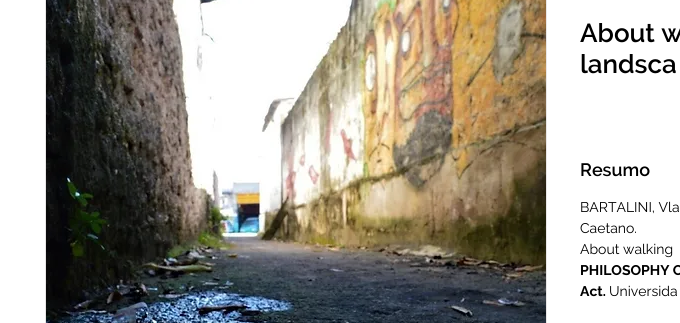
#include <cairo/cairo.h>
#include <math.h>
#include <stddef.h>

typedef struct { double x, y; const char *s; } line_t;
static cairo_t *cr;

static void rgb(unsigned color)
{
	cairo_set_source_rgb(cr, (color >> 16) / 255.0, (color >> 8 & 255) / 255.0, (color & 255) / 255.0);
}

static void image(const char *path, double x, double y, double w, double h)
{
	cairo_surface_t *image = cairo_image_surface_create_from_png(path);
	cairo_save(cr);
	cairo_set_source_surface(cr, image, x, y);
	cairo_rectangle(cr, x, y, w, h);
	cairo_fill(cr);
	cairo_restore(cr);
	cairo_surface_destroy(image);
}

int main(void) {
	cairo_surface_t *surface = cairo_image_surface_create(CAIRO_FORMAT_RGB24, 680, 323);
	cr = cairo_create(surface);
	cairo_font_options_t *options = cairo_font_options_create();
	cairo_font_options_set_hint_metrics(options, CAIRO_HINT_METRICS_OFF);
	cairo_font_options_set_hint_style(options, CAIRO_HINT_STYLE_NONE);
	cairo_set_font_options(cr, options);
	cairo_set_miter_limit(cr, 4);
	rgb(0xffffff);
	cairo_paint(cr);
	cairo_rectangle(cr, 45.5, -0.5, 501, 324);
	rgb(0xe8e6e6);
	cairo_set_line_width(cr, 1);
	cairo_stroke(cr);
	image("img/1.png", 46, 0, 500, 323);
	cairo_select_font_face(cr, "Raleway SemiBold", CAIRO_FONT_SLANT_NORMAL, CAIRO_FONT_WEIGHT_NORMAL);
	cairo_set_font_size(cr, 26);
	rgb(0x000000);
	cairo_move_to(cr, 580, 42);
	cairo_show_text(cr, "About w");
	cairo_move_to(cr, 580, 73);
	cairo_show_text(cr, "landsca");
	cairo_set_font_size(cr, 18);
	cairo_move_to(cr, 580, 176);
	cairo_show_text(cr, "Resumo");
	cairo_select_font_face(cr, "Raleway", CAIRO_FONT_SLANT_NORMAL, CAIRO_FONT_WEIGHT_NORMAL);
	cairo_set_font_size(cr, 14);
	{
		static const line_t items[] = {
			{580, 212, "BARTALINI, Vla"},
			{580, 233, "Caetano."},
			{580, 254, "About walking"},
		};
		for (size_t i = 0; i < sizeof items / sizeof *items; i++) {
			cairo_move_to(cr, items[i].x, items[i].y);
			cairo_show_text(cr, items[i].s);
		}
	}
	cairo_select_font_face(cr, "Raleway", CAIRO_FONT_SLANT_NORMAL, CAIRO_FONT_WEIGHT_BOLD);
	cairo_move_to(cr, 580, 275);
	cairo_show_text(cr, "PHILOSOPHY O");
	cairo_move_to(cr, 580, 296);
	cairo_show_text(cr, "Act.");
	cairo_select_font_face(cr, "Raleway", CAIRO_FONT_SLANT_NORMAL, CAIRO_FONT_WEIGHT_NORMAL);
	cairo_move_to(cr, 609, 296);
	cairo_show_text(cr, "Universida");
	cairo_surface_write_to_png(surface, "page.png");
	cairo_font_options_destroy(options);
	cairo_destroy(cr);
	cairo_surface_destroy(surface);
	return 0;
}
